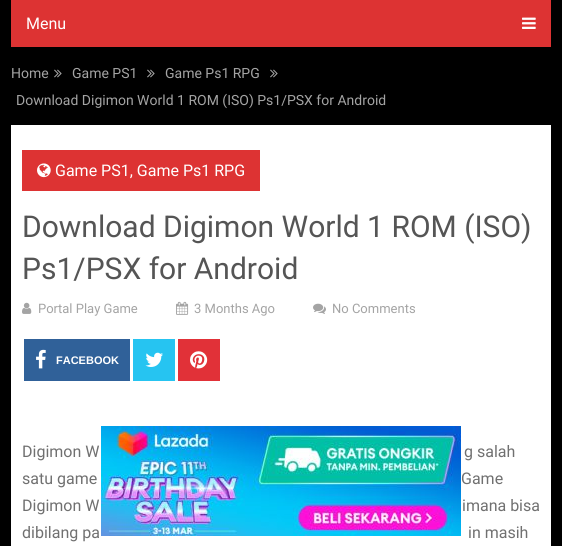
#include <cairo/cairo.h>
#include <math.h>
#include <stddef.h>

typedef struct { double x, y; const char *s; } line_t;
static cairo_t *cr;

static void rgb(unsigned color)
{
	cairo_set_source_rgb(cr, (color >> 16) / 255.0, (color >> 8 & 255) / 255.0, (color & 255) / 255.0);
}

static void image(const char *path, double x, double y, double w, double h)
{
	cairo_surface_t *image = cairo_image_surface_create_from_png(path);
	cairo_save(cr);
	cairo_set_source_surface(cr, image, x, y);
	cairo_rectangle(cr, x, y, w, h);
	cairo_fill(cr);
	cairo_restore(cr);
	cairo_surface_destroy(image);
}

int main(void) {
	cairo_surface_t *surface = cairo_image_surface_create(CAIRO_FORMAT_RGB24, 562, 546);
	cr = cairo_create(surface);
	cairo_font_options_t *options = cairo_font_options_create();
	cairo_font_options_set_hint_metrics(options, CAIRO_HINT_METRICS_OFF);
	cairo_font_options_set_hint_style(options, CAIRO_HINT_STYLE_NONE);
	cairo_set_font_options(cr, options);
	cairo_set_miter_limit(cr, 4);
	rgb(0x000000);
	cairo_paint(cr);
	rgb(0xdd3333);
	cairo_rectangle(cr, 11, 0, 540, 47);
	cairo_fill(cr);
	image("img/1.png", 522, 17, 14, 12);
	image("img/2.png", 54, 69, 8, 9);
	image("img/2.png", 147, 69, 8, 9);
	image("img/2.png", 270, 69, 8, 9);
	rgb(0xffffff);
	cairo_rectangle(cr, 11, 125, 540, 421);
	cairo_fill(cr);
	rgb(0xdd3333);
	cairo_rectangle(cr, 22, 150, 238, 41);
	cairo_fill(cr);
	image("img/3.png", 37, 163, 14, 15);
	image("img/4.png", 22, 302, 10, 12);
	image("img/5.png", 176, 301, 13, 14);
	image("img/6.png", 313, 303, 13, 11);
	rgb(0x306199);
	cairo_rectangle(cr, 24, 339, 106, 42);
	cairo_fill(cr);
	image("img/7.png", 36, 349, 10, 20);
	rgb(0x26c4f1);
	cairo_rectangle(cr, 133, 339, 42, 42);
	cairo_fill(cr);
	image("img/8.png", 145, 352, 18, 15);
	rgb(0xe13138);
	cairo_rectangle(cr, 178, 339, 42, 42);
	cairo_fill(cr);
	image("img/9.png", 190, 351, 18, 18);
	image("img/10.png", 101, 426, 360, 110);
	cairo_select_font_face(cr, "Roboto", CAIRO_FONT_SLANT_NORMAL, CAIRO_FONT_WEIGHT_NORMAL);
	cairo_set_font_size(cr, 16);
	rgb(0xffffff);
	cairo_move_to(cr, 26, 29);
	cairo_show_text(cr, "Menu");
	cairo_set_font_size(cr, 14);
	rgb(0xa4a4a4);
	{
		static const line_t items[] = {
			{11, 78, "Home"},
			{72, 78, "Game PS1"},
			{165, 78, "Game Ps1 RPG"},
			{16, 105, "Download Digimon World 1 ROM (ISO) Ps1/PSX for Android"},
		};
		for (size_t i = 0; i < sizeof items / sizeof *items; i++) {
			cairo_move_to(cr, items[i].x, items[i].y);
			cairo_show_text(cr, items[i].s);
		}
	}
	cairo_set_font_size(cr, 16);
	rgb(0xffffff);
	cairo_move_to(cr, 55, 176);
	cairo_show_text(cr, "Game PS1, Game Ps1 RPG");
	cairo_set_font_size(cr, 30);
	rgb(0x555555);
	cairo_move_to(cr, 22, 237);
	cairo_show_text(cr, "Download Digimon World 1 ROM (ISO)");
	cairo_move_to(cr, 22, 279);
	cairo_show_text(cr, "Ps1/PSX for Android");
	cairo_set_font_size(cr, 13);
	rgb(0xa4a4a4);
	{
		static const line_t items[] = {
			{38, 313, "Portal Play Game"},
			{194, 313, "3 Months Ago"},
			{332, 313, "No Comments"},
		};
		for (size_t i = 0; i < sizeof items / sizeof *items; i++) {
			cairo_move_to(cr, items[i].x, items[i].y);
			cairo_show_text(cr, items[i].s);
		}
	}
	cairo_select_font_face(cr, "Liberation Sans", CAIRO_FONT_SLANT_NORMAL, CAIRO_FONT_WEIGHT_BOLD);
	cairo_set_font_size(cr, 11);
	rgb(0xffffff);
	cairo_move_to(cr, 56, 364);
	cairo_show_text(cr, "FACEBOOK");
	cairo_select_font_face(cr, "Roboto", CAIRO_FONT_SLANT_NORMAL, CAIRO_FONT_WEIGHT_NORMAL);
	cairo_set_font_size(cr, 16);
	rgb(0x707070);
	{
		static const line_t items[] = {
			{22, 457, "Digimon W"},
			{464, 457, "g salah"},
			{22, 484, "satu game"},
			{461, 484, "Game"},
			{22, 511, "Digimon W"},
			{462, 511, "imana bisa"},
			{22, 538, "dibilang pa"},
			{468, 538, "in masih"},
		};
		for (size_t i = 0; i < sizeof items / sizeof *items; i++) {
			cairo_move_to(cr, items[i].x, items[i].y);
			cairo_show_text(cr, items[i].s);
		}
	}
	cairo_surface_write_to_png(surface, "page.png");
	cairo_font_options_destroy(options);
	cairo_destroy(cr);
	cairo_surface_destroy(surface);
	return 0;
}
